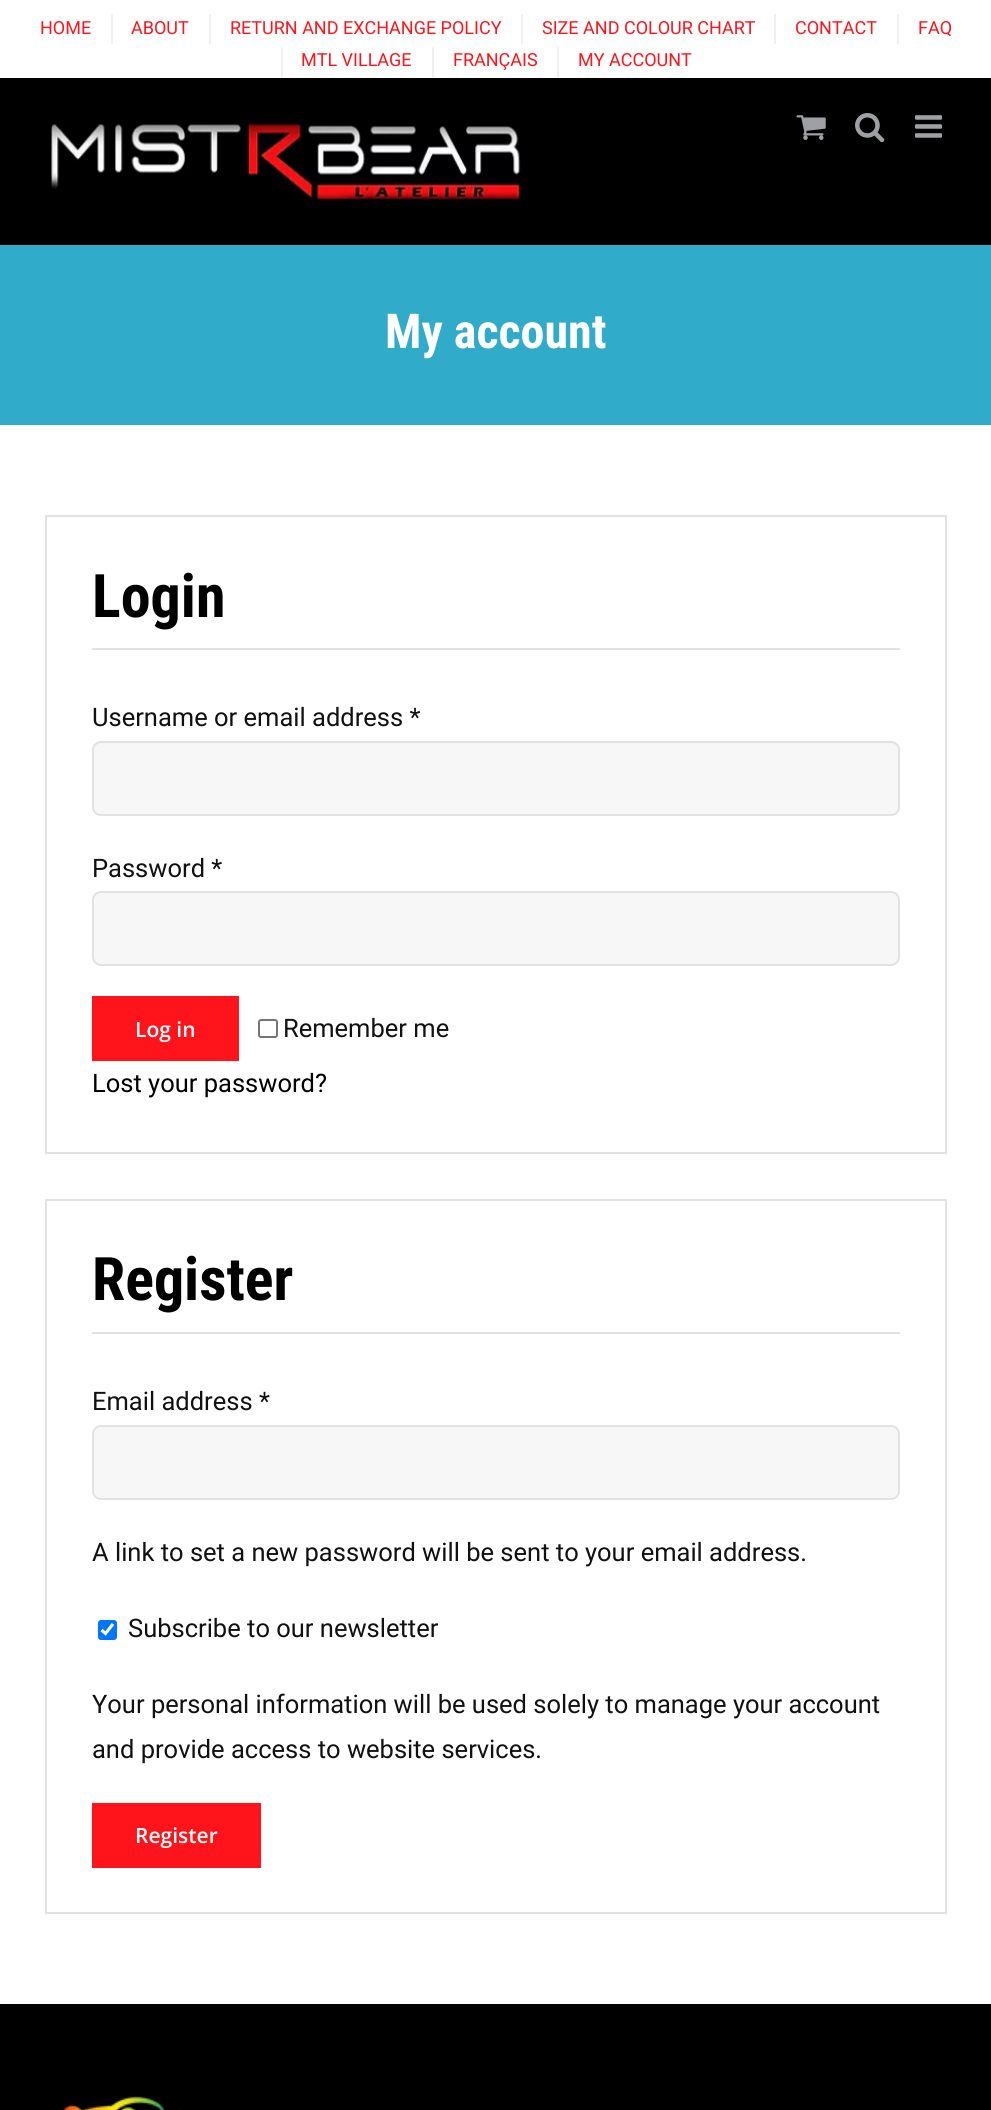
#include <cairo/cairo.h>
#include <math.h>
#include <stddef.h>

typedef struct { double x, y; const char *s; } line_t;
typedef struct { double x, y, w, h; unsigned color; } box_t;
static cairo_t *cr;

static void rgb(unsigned color)
{
	cairo_set_source_rgb(cr, (color >> 16) / 255.0, (color >> 8 & 255) / 255.0, (color & 255) / 255.0);
}

static void rrect(double x, double y, double w, double h, double r)
{
	cairo_new_sub_path(cr);
	cairo_arc(cr, x + w - r, y + h - r, r, 0, M_PI / 2);
	cairo_arc(cr, x + r, y + h - r, r, M_PI / 2, M_PI);
	cairo_arc(cr, x + r, y + r, r, M_PI, 1.5 * M_PI);
	cairo_arc(cr, x + w - r, y + r, r, 1.5 * M_PI, 2 * M_PI);
	cairo_close_path(cr);
}

static void image(const char *path, double x, double y, double w, double h)
{
	cairo_surface_t *image = cairo_image_surface_create_from_png(path);
	cairo_save(cr);
	cairo_set_source_surface(cr, image, x, y);
	cairo_rectangle(cr, x, y, w, h);
	cairo_fill(cr);
	cairo_restore(cr);
	cairo_surface_destroy(image);
}

int main(void) {
	cairo_surface_t *surface = cairo_image_surface_create(CAIRO_FORMAT_RGB24, 991, 2110);
	cr = cairo_create(surface);
	cairo_font_options_t *options = cairo_font_options_create();
	cairo_font_options_set_hint_metrics(options, CAIRO_HINT_METRICS_OFF);
	cairo_font_options_set_hint_style(options, CAIRO_HINT_STYLE_NONE);
	cairo_set_font_options(cr, options);
	cairo_set_miter_limit(cr, 4);
	rgb(0xffffff);
	cairo_paint(cr);
	{
		static const box_t items[] = {
			{111, 14, 2, 30, 0xf0f0f0},
			{209, 14, 2, 30, 0xf0f0f0},
			{521, 14, 2, 30, 0xf0f0f0},
			{774, 14, 2, 30, 0xf0f0f0},
			{897, 14, 2, 30, 0xf0f0f0},
			{281, 47, 2, 30, 0xf0f0f0},
			{432, 47, 2, 30, 0xf0f0f0},
			{557, 47, 2, 30, 0xf0f0f0},
			{0, 78, 991, 167, 0x000000},
		};
		for (size_t i = 0; i < sizeof items / sizeof *items; i++) {
			rgb(items[i].color);
			cairo_rectangle(cr, items[i].x, items[i].y, items[i].w, items[i].h);
			cairo_fill(cr);
		}
	}
	image("img/1.png", 51, 123, 471, 80);
	image("img/2.png", 796, 115, 30, 25);
	image("img/3.png", 855, 113, 30, 30);
	image("img/4.png", 915, 115, 27, 23);
	rgb(0x31abca);
	cairo_rectangle(cr, 0, 245, 991, 180);
	cairo_fill(cr);
	cairo_rectangle(cr, 46, 516, 900, 637);
	rgb(0xe2e2e2);
	cairo_stroke(cr);
	cairo_rectangle(cr, 92, 648, 808, 2);
	cairo_fill(cr);
	rgb(0xf7f7f7);
	rrect(93, 742, 806, 73, 8);
	cairo_fill_preserve(cr);
	rgb(0xe2e2e2);
	cairo_stroke(cr);
	rgb(0xf7f7f7);
	rrect(93, 892, 806, 73, 8);
	cairo_fill_preserve(cr);
	rgb(0xe2e2e2);
	cairo_stroke(cr);
	rgb(0xff141b);
	cairo_rectangle(cr, 92, 996, 147, 65);
	cairo_fill(cr);
	rrect(259, 1020, 18, 17, 2);
	rgb(0x767676);
	cairo_stroke(cr);
	cairo_rectangle(cr, 46, 1200, 900, 713);
	rgb(0xe2e2e2);
	cairo_stroke(cr);
	cairo_rectangle(cr, 92, 1332, 808, 2);
	cairo_fill(cr);
	rgb(0xf7f7f7);
	rrect(93, 1426, 806, 73, 8);
	cairo_fill_preserve(cr);
	rgb(0xe2e2e2);
	cairo_stroke(cr);
	rgb(0x0075ff);
	rrect(98, 1620, 19, 20, 3);
	cairo_fill(cr);
	cairo_new_path(cr);
	cairo_move_to(cr, 101.5, 1630);
	cairo_line_to(cr, 105.5, 1633.5);
	cairo_line_to(cr, 113, 1624);
	rgb(0xffffff);
	cairo_set_line_width(cr, 3.1);
	cairo_stroke(cr);
	rgb(0xff141b);
	cairo_rectangle(cr, 92, 1803, 169, 65);
	cairo_fill(cr);
	rgb(0x000000);
	cairo_rectangle(cr, 0, 2004, 991, 106);
	cairo_fill(cr);
	image("img/5.png", 63, 2096, 119, 14);
	cairo_select_font_face(cr, "Roboto", CAIRO_FONT_SLANT_NORMAL, CAIRO_FONT_WEIGHT_NORMAL);
	cairo_set_font_size(cr, 18);
	rgb(0xff141b);
	{
		static const line_t items[] = {
			{40, 34, "HOME"},
			{131, 34, "ABOUT"},
			{230, 34, "RETURN AND EXCHANGE POLICY"},
			{542, 34, "SIZE AND COLOUR CHART"},
			{795, 34, "CONTACT"},
			{918, 34, "FAQ"},
			{301, 66, "MTL VILLAGE"},
			{453, 66, "FRANÇAIS"},
			{578, 66, "MY ACCOUNT"},
		};
		for (size_t i = 0; i < sizeof items / sizeof *items; i++) {
			cairo_move_to(cr, items[i].x, items[i].y);
			cairo_show_text(cr, items[i].s);
		}
	}
	cairo_select_font_face(cr, "Roboto Condensed", CAIRO_FONT_SLANT_NORMAL, CAIRO_FONT_WEIGHT_BOLD);
	cairo_set_font_size(cr, 48);
	rgb(0xffffff);
	cairo_move_to(cr, 385, 348);
	cairo_show_text(cr, "My account");
	cairo_set_font_size(cr, 60);
	rgb(0x000000);
	cairo_move_to(cr, 92, 617);
	cairo_show_text(cr, "Login");
	cairo_select_font_face(cr, "Roboto", CAIRO_FONT_SLANT_NORMAL, CAIRO_FONT_WEIGHT_NORMAL);
	cairo_set_font_size(cr, 25.5);
	rgb(0x111111);
	cairo_move_to(cr, 92, 726);
	cairo_show_text(cr, "Username or email address *");
	cairo_move_to(cr, 92, 877);
	cairo_show_text(cr, "Password *");
	cairo_select_font_face(cr, "Open Sans SemiBold", CAIRO_FONT_SLANT_NORMAL, CAIRO_FONT_WEIGHT_NORMAL);
	cairo_set_font_size(cr, 21);
	rgb(0xffffff);
	cairo_move_to(cr, 135, 1037);
	cairo_show_text(cr, "Log in");
	cairo_select_font_face(cr, "Roboto", CAIRO_FONT_SLANT_NORMAL, CAIRO_FONT_WEIGHT_NORMAL);
	cairo_set_font_size(cr, 25.5);
	rgb(0x111111);
	cairo_move_to(cr, 283, 1037);
	cairo_show_text(cr, "Remember me");
	rgb(0x000000);
	cairo_move_to(cr, 92, 1092);
	cairo_show_text(cr, "Lost your password?");
	cairo_select_font_face(cr, "Roboto Condensed", CAIRO_FONT_SLANT_NORMAL, CAIRO_FONT_WEIGHT_BOLD);
	cairo_set_font_size(cr, 60);
	cairo_move_to(cr, 92, 1300);
	cairo_show_text(cr, "Register");
	cairo_select_font_face(cr, "Roboto", CAIRO_FONT_SLANT_NORMAL, CAIRO_FONT_WEIGHT_NORMAL);
	cairo_set_font_size(cr, 25.5);
	rgb(0x111111);
	{
		static const line_t items[] = {
			{92, 1410, "Email address *"},
			{92, 1561, "A link to set a new password will be sent to your email address."},
			{128, 1637, "Subscribe to our newsletter"},
			{92, 1713, "Your personal information will be used solely to manage your account"},
			{92, 1758, "and provide access to website services."},
		};
		for (size_t i = 0; i < sizeof items / sizeof *items; i++) {
			cairo_move_to(cr, items[i].x, items[i].y);
			cairo_show_text(cr, items[i].s);
		}
	}
	cairo_select_font_face(cr, "Open Sans SemiBold", CAIRO_FONT_SLANT_NORMAL, CAIRO_FONT_WEIGHT_NORMAL);
	cairo_set_font_size(cr, 21);
	rgb(0xffffff);
	cairo_move_to(cr, 135, 1843);
	cairo_show_text(cr, "Register");
	cairo_surface_write_to_png(surface, "page.png");
	cairo_font_options_destroy(options);
	cairo_destroy(cr);
	cairo_surface_destroy(surface);
	return 0;
}
